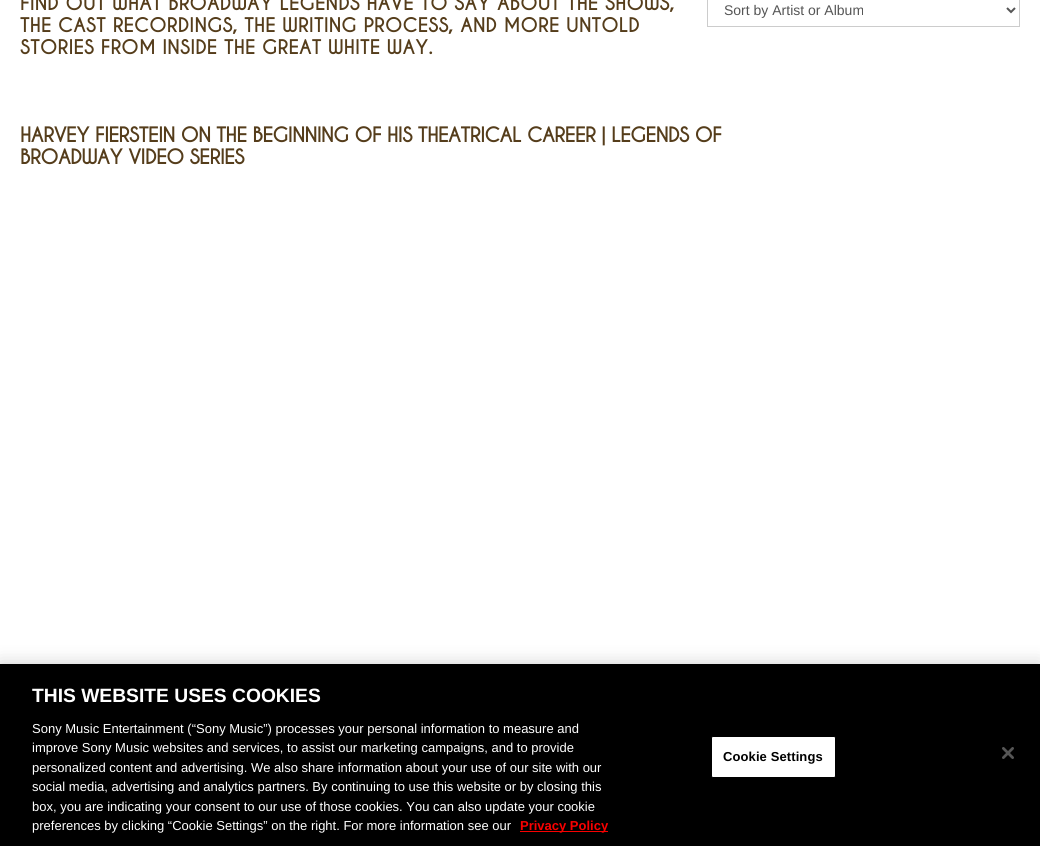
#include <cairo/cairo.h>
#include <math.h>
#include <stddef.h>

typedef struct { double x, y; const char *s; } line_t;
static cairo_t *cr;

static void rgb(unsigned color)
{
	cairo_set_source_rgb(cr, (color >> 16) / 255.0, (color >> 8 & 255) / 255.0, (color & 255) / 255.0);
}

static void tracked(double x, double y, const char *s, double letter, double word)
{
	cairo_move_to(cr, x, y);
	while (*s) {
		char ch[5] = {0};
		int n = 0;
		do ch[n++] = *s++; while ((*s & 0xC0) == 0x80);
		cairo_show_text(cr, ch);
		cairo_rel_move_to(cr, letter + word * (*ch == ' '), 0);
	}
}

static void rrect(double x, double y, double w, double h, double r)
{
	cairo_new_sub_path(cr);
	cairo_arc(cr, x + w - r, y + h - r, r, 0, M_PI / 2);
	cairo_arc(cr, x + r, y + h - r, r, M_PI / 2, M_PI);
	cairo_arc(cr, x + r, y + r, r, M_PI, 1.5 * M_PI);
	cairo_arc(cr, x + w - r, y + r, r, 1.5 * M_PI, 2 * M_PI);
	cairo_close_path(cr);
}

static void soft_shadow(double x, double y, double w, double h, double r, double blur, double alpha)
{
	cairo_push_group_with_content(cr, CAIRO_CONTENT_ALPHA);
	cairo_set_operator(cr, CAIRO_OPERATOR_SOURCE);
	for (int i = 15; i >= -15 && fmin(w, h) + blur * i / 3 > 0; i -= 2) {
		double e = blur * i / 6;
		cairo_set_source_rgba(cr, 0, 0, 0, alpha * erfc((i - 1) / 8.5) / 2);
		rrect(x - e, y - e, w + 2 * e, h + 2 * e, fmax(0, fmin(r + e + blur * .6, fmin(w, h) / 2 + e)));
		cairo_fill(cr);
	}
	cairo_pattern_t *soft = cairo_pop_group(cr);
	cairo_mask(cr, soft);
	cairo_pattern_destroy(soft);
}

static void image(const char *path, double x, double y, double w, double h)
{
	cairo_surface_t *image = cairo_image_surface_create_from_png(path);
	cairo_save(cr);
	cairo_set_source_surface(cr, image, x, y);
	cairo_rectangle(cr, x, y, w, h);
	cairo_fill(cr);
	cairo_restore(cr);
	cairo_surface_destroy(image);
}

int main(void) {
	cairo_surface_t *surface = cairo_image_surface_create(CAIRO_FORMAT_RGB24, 1040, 846);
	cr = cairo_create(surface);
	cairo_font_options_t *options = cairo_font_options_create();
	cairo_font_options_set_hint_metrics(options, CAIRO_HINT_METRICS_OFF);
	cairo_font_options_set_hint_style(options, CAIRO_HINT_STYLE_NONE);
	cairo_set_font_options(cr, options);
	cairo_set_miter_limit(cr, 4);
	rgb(0xffffff);
	cairo_paint(cr);
	cairo_rectangle(cr, 707.5, -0.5, 312, 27);
	rgb(0xcccccc);
	cairo_set_line_width(cr, 1);
	cairo_stroke(cr);
	cairo_new_path(cr);
	cairo_move_to(cr, 1007, 8);
	cairo_line_to(cr, 1011, 12);
	cairo_line_to(cr, 1015, 8);
	rgb(0x555555);
	cairo_set_line_width(cr, 2);
	cairo_stroke(cr);
	rgb(0x000000);
	soft_shadow(0, 664, 1040, 182, 0, 9, 0.2);
	rgb(0x000000);
	cairo_rectangle(cr, 0, 664, 1040, 182);
	cairo_fill(cr);
	rgb(0xf90000);
	cairo_rectangle(cr, 520, 831, 88, 1);
	cairo_fill(cr);
	rgb(0xffffff);
	rrect(711.5, 736.5, 124, 41, 1.5);
	cairo_fill_preserve(cr);
	rgb(0x000000);
	cairo_set_line_width(cr, 1);
	cairo_stroke(cr);
	image("img/1.png", 1002, 747, 12, 12);
	cairo_select_font_face(cr, "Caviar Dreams", CAIRO_FONT_SLANT_NORMAL, CAIRO_FONT_WEIGHT_BOLD);
	cairo_set_font_size(cr, 19);
	rgb(0x553d1b);
	{
		static const line_t items[] = {
			{20, 10, "FIND OUT WHAT BROADWAY LEGENDS HAVE TO SAY ABOUT THE SHOWS,"},
			{20, 32, "THE CAST RECORDINGS, THE WRITING PROCESS, AND MORE UNTOLD"},
			{20, 54, "STORIES FROM INSIDE THE GREAT WHITE WAY."},
		};
		for (size_t i = 0; i < sizeof items / sizeof *items; i++) {
			cairo_move_to(cr, items[i].x, items[i].y);
			cairo_show_text(cr, items[i].s);
		}
	}
	cairo_select_font_face(cr, "Liberation Sans", CAIRO_FONT_SLANT_NORMAL, CAIRO_FONT_WEIGHT_NORMAL);
	cairo_set_font_size(cr, 14);
	rgb(0x555555);
	cairo_move_to(cr, 724, 15);
	cairo_show_text(cr, "Sort by Artist or Album");
	cairo_select_font_face(cr, "Caviar Dreams", CAIRO_FONT_SLANT_NORMAL, CAIRO_FONT_WEIGHT_BOLD);
	cairo_set_font_size(cr, 20);
	rgb(0x553d1b);
	tracked(20, 142, "HARVEY FIERSTEIN ON THE BEGINNING OF HIS THEATRICAL CAREER | LEGENDS OF", -1, 0);
	tracked(20, 164, "BROADWAY VIDEO SERIES", -1, 0);
	cairo_select_font_face(cr, "Liberation Sans", CAIRO_FONT_SLANT_NORMAL, CAIRO_FONT_WEIGHT_BOLD);
	cairo_set_font_size(cr, 19.25);
	rgb(0xffffff);
	cairo_move_to(cr, 32, 702);
	cairo_show_text(cr, "THIS WEBSITE USES COOKIES");
	cairo_select_font_face(cr, "Liberation Sans", CAIRO_FONT_SLANT_NORMAL, CAIRO_FONT_WEIGHT_NORMAL);
	cairo_set_font_size(cr, 13);
	{
		static const line_t items[] = {
			{32, 733, "Sony Music Entertainment (“Sony Music”) processes your personal information to measure and"},
			{32, 752, "improve Sony Music websites and services, to assist our marketing campaigns, and to provide"},
			{32, 772, "personalized content and advertising. We also share information about your use of our site with our"},
			{32, 791, "social media, advertising and analytics partners. By continuing to use this website or by closing this"},
			{32, 811, "box, you are indicating your consent to our use of those cookies. You can also update your cookie"},
			{32, 830, "preferences by clicking “Cookie Settings” on the right. For more information see our"},
		};
		for (size_t i = 0; i < sizeof items / sizeof *items; i++) {
			cairo_move_to(cr, items[i].x, items[i].y);
			cairo_show_text(cr, items[i].s);
		}
	}
	cairo_select_font_face(cr, "Liberation Sans", CAIRO_FONT_SLANT_NORMAL, CAIRO_FONT_WEIGHT_BOLD);
	rgb(0xf90000);
	cairo_move_to(cr, 520, 830);
	cairo_show_text(cr, "Privacy Policy");
	rgb(0x000000);
	tracked(723, 761, "Cookie Settings", 0.1, 0);
	cairo_surface_write_to_png(surface, "page.png");
	cairo_font_options_destroy(options);
	cairo_destroy(cr);
	cairo_surface_destroy(surface);
	return 0;
}
